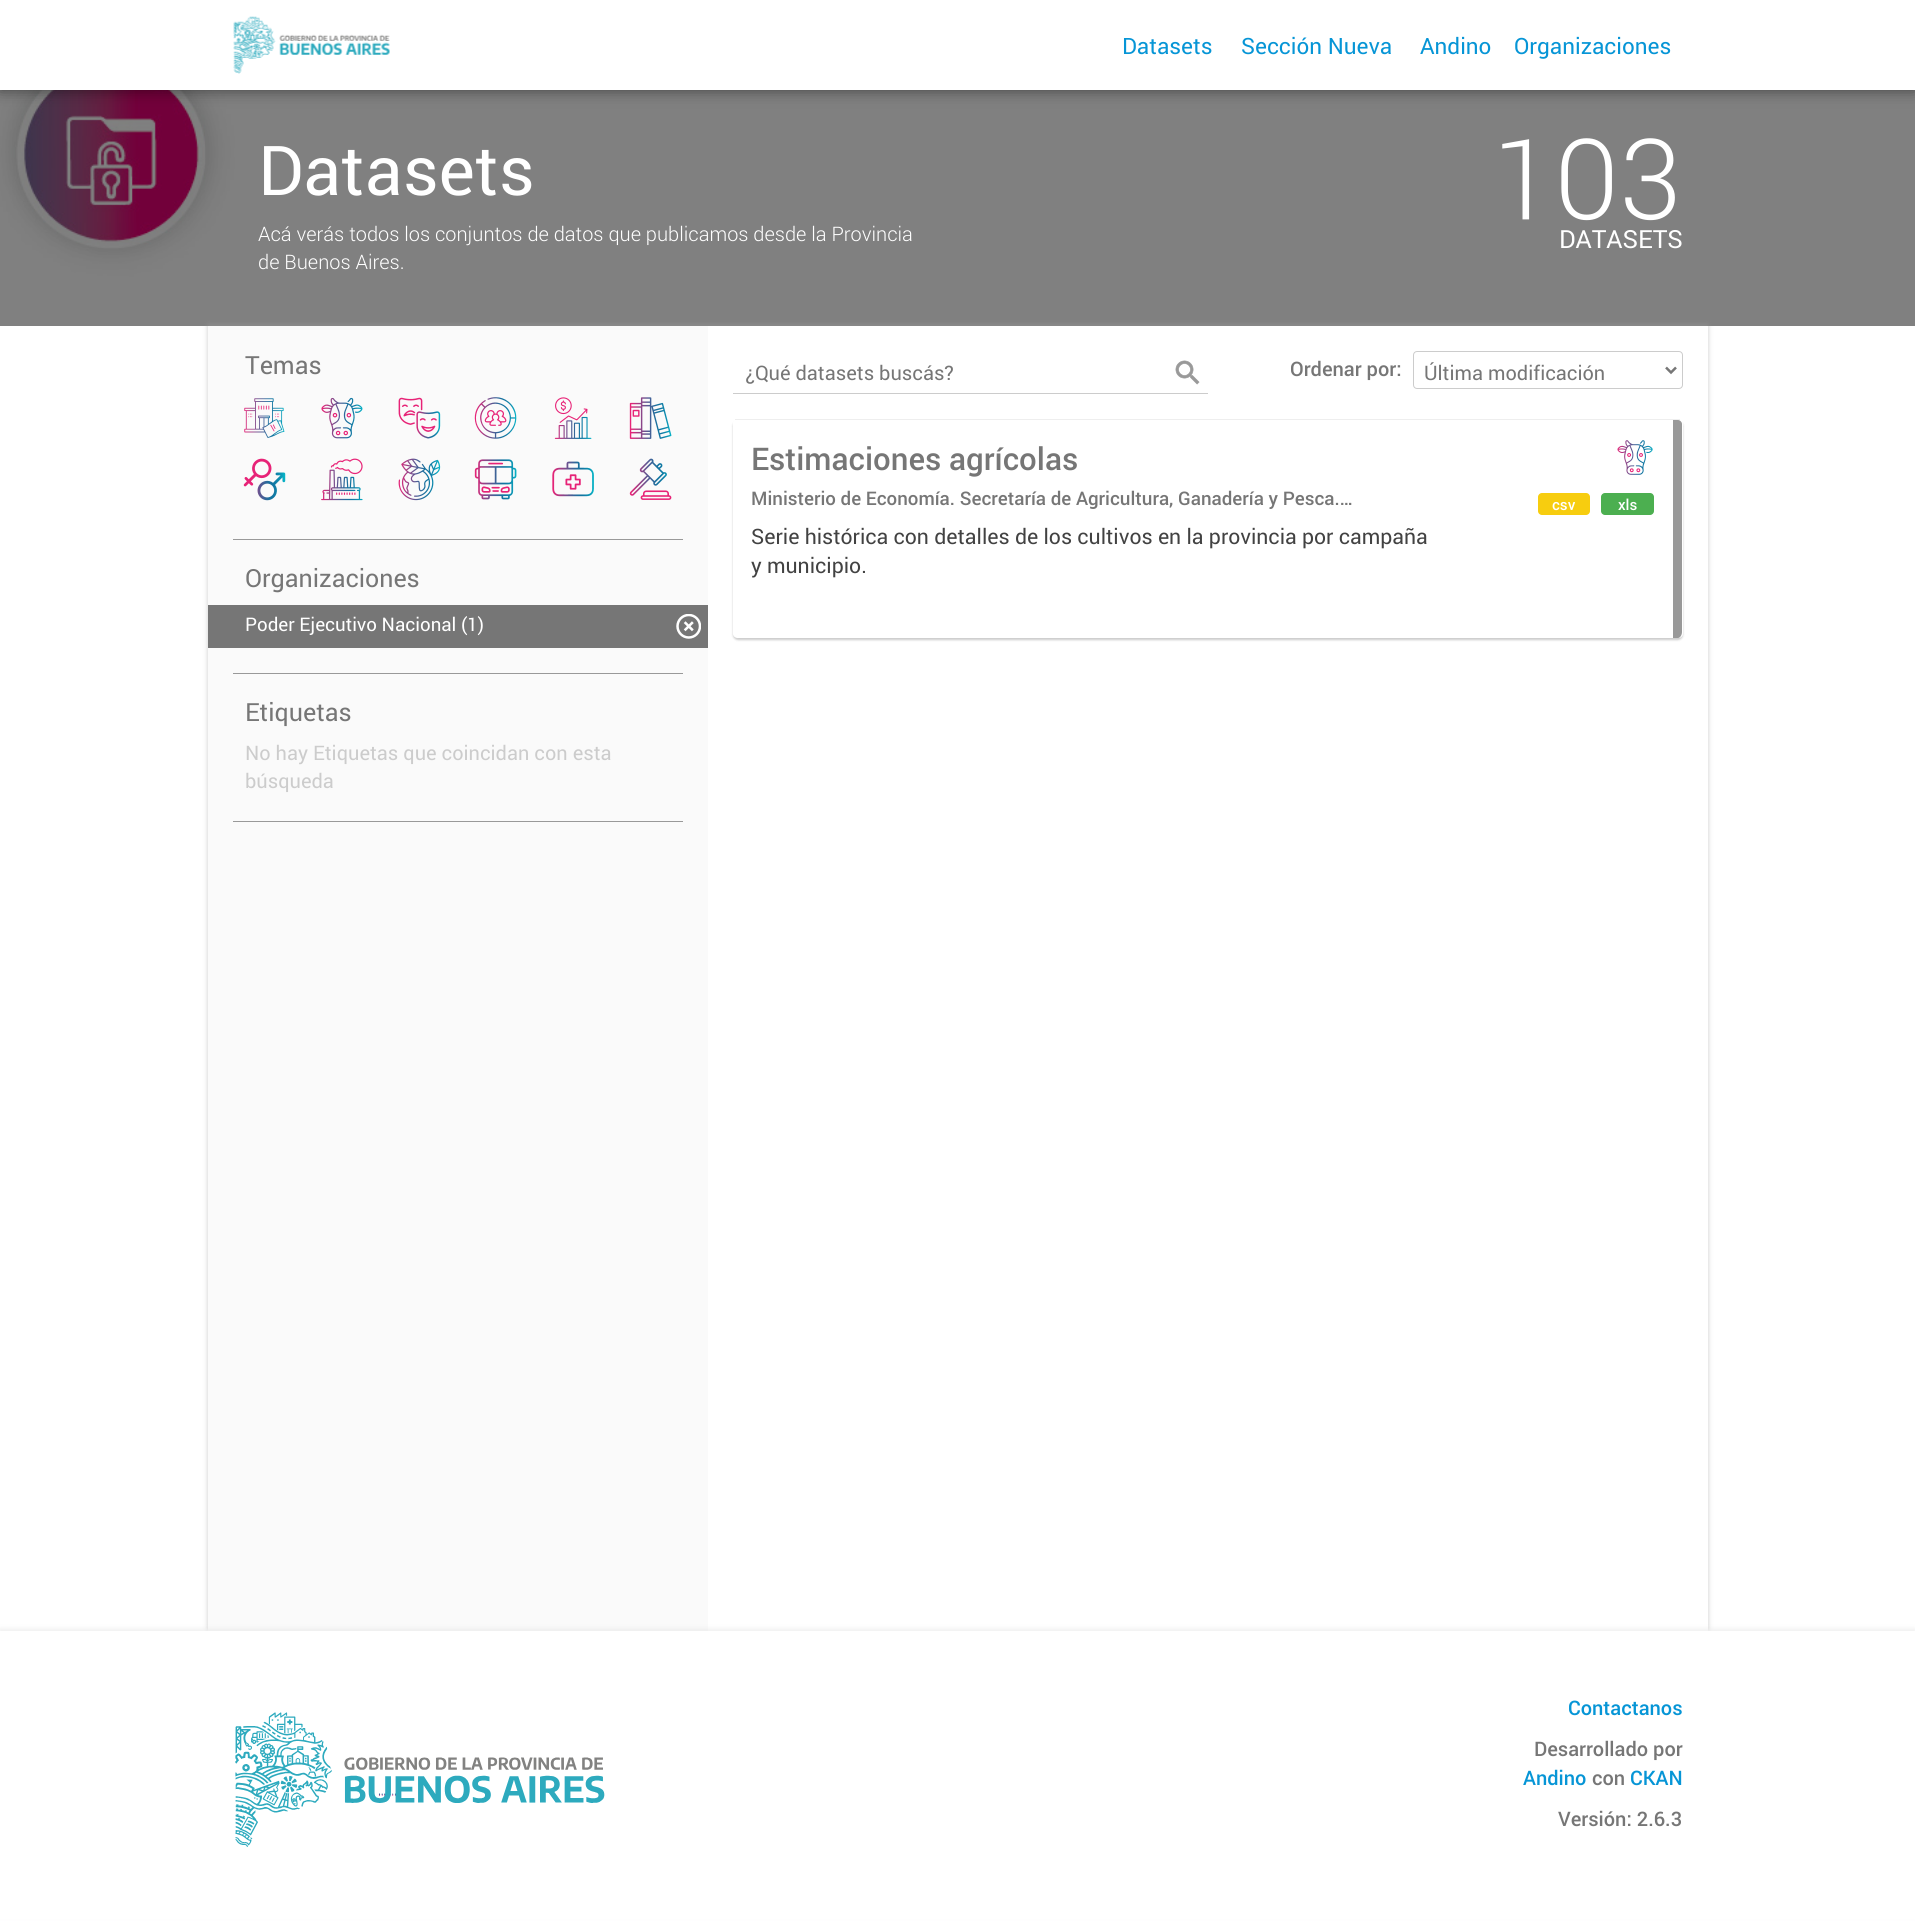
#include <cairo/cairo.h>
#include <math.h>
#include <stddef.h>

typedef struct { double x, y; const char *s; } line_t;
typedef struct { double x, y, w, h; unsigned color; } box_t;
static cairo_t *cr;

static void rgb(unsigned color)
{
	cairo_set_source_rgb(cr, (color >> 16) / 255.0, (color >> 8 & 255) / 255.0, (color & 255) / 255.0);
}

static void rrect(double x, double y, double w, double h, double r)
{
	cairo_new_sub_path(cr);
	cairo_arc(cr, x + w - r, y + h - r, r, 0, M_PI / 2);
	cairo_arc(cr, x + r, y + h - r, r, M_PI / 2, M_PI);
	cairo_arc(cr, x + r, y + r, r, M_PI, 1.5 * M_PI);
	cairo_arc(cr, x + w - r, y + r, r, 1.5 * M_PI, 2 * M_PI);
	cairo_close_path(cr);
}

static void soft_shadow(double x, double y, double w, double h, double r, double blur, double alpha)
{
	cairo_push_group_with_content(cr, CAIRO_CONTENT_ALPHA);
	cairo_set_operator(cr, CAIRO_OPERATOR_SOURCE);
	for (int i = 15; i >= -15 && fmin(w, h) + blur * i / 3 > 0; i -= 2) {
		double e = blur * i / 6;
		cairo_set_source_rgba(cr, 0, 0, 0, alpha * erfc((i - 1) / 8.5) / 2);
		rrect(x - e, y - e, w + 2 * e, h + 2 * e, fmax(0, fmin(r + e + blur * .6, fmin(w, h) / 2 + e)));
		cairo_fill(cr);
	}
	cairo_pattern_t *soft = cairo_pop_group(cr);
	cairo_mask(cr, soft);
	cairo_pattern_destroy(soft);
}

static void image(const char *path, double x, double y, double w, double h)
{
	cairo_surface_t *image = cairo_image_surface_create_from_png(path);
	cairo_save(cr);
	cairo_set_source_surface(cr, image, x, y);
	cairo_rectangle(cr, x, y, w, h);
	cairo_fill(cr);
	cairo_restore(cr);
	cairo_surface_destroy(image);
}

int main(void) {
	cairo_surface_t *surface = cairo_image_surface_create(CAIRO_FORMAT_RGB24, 1915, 1927);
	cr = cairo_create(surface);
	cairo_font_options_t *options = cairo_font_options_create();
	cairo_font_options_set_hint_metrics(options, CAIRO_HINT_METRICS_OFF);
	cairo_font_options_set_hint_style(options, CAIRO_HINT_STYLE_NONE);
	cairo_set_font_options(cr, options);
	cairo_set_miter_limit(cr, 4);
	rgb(0xffffff);
	cairo_paint(cr);
	image("img/2.png", 0, 90, 1915, 236);
	rgb(0x000000);
	soft_shadow(0, 0, 1915, 90, 0, 7.5, 0.5);
	rgb(0xffffff);
	cairo_rectangle(cr, 0, 0, 1915, 90);
	cairo_fill(cr);
	image("img/1.png", 233, 16, 157, 58);
	cairo_save(cr);
	cairo_set_fill_rule(cr, CAIRO_FILL_RULE_EVEN_ODD);
	cairo_new_path(cr);
	cairo_move_to(cr, 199, 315);
	cairo_line_to(cr, 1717, 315);
	cairo_line_to(cr, 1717, 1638);
	cairo_line_to(cr, 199, 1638);
	cairo_close_path(cr);
	cairo_move_to(cr, 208, 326);
	cairo_line_to(cr, 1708, 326);
	cairo_line_to(cr, 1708, 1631);
	cairo_line_to(cr, 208, 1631);
	cairo_close_path(cr);
	cairo_clip(cr);
	rgb(0x969696);
	soft_shadow(208, 324, 1500, 1305, 0, 2.5, 0.5);
	cairo_restore(cr);
	rgb(0xfafafa);
	cairo_rectangle(cr, 208, 326, 500, 1305);
	cairo_fill(cr);
	image("img/3.png", 244, 398, 41, 40);
	image("img/4.png", 321, 397, 42, 42);
	image("img/5.png", 398, 397, 43, 42);
	image("img/6.png", 474, 397, 43, 42);
	image("img/7.png", 554, 397, 38, 42);
	image("img/8.png", 629, 397, 43, 42);
	image("img/9.png", 243, 458, 43, 43);
	image("img/10.png", 321, 458, 42, 43);
	image("img/11.png", 398, 458, 43, 43);
	image("img/12.png", 474, 459, 43, 41);
	image("img/13.png", 552, 461, 42, 36);
	image("img/14.png", 629, 458, 43, 42);
	rgb(0x999999);
	cairo_rectangle(cr, 233, 539, 450, 1);
	cairo_fill(cr);
	rgb(0x767676);
	cairo_rectangle(cr, 208, 605, 500, 43);
	cairo_fill(cr);
	image("img/15.png", 676, 614, 25, 25);
	{
		static const box_t items[] = {
			{233, 673, 450, 1, 0x999999},
			{233, 821, 450, 1, 0x999999},
			{733, 393, 475, 1, 0xcccccc},
		};
		for (size_t i = 0; i < sizeof items / sizeof *items; i++) {
			rgb(items[i].color);
			cairo_rectangle(cr, items[i].x, items[i].y, items[i].w, items[i].h);
			cairo_fill(cr);
		}
	}
	image("img/16.png", 1175, 360, 25, 25);
	rrect(1413.5, 351.5, 269, 37, 3.5);
	cairo_set_line_width(cr, 1);
	cairo_stroke(cr);
	cairo_new_path(cr);
	cairo_move_to(cr, 1666, 367.5);
	cairo_line_to(cr, 1671, 372.5);
	cairo_line_to(cr, 1676, 367.5);
	rgb(0x767676);
	cairo_set_line_width(cr, 2.5);
	cairo_stroke(cr);
	cairo_save(cr);
	cairo_set_fill_rule(cr, CAIRO_FILL_RULE_EVEN_ODD);
	cairo_new_path(cr);
	cairo_move_to(cr, 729, 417);
	cairo_line_to(cr, 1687, 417);
	cairo_line_to(cr, 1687, 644);
	cairo_line_to(cr, 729, 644);
	cairo_close_path(cr);
	cairo_move_to(cr, 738, 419);
	cairo_line_to(cr, 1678, 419);
	cairo_curve_to(cr, 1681, 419, 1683, 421, 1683, 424);
	cairo_line_to(cr, 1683, 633);
	cairo_curve_to(cr, 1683, 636, 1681, 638, 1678, 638);
	cairo_line_to(cr, 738, 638);
	cairo_curve_to(cr, 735, 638, 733, 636, 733, 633);
	cairo_line_to(cr, 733, 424);
	cairo_curve_to(cr, 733, 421, 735, 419, 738, 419);
	cairo_close_path(cr);
	cairo_clip(cr);
	rgb(0x000000);
	soft_shadow(733, 421, 950, 219, 5, 1, 0.2);
	cairo_restore(cr);
	rgb(0xeeeeee);
	cairo_rectangle(cr, 735, 419, 945, 1);
	cairo_fill(cr);
	rgb(0x999999);
	cairo_new_path(cr);
	cairo_move_to(cr, 1673, 420);
	cairo_line_to(cr, 1673, 638);
	cairo_line_to(cr, 1678, 638);
	cairo_curve_to(cr, 1680, 638, 1682, 635, 1682, 632);
	cairo_line_to(cr, 1682, 424);
	cairo_curve_to(cr, 1682, 422, 1680, 420, 1678, 420);
	cairo_close_path(cr);
	cairo_fill(cr);
	image("img/17.png", 1617, 440, 36, 35);
	rgb(0xf7cd0f);
	rrect(1538, 493, 52, 22, 4);
	cairo_fill(cr);
	rgb(0x4caf50);
	rrect(1601, 493, 53, 22, 4);
	cairo_fill(cr);
	rgb(0xdcdcdc);
	soft_shadow(0, 1629, 1915, 287, 0, 2.5, 0.5);
	rgb(0xffffff);
	cairo_rectangle(cr, 0, 1631, 1915, 288);
	cairo_fill(cr);
	image("img/18.png", 235, 1712, 370, 135);
	cairo_select_font_face(cr, "Roboto", CAIRO_FONT_SLANT_NORMAL, CAIRO_FONT_WEIGHT_NORMAL);
	cairo_set_font_size(cr, 22.5);
	rgb(0x0695d6);
	{
		static const line_t items[] = {
			{1122, 54, "Datasets"},
			{1241, 54, "Sección Nueva"},
			{1420, 54, "Andino"},
			{1514, 54, "Organizaciones"},
		};
		for (size_t i = 0; i < sizeof items / sizeof *items; i++) {
			cairo_move_to(cr, items[i].x, items[i].y);
			cairo_show_text(cr, items[i].s);
		}
	}
	cairo_set_font_size(cr, 68.75);
	rgb(0xffffff);
	cairo_move_to(cr, 258, 195);
	cairo_show_text(cr, "Datasets");
	cairo_select_font_face(cr, "Roboto Light", CAIRO_FONT_SLANT_NORMAL, CAIRO_FONT_WEIGHT_NORMAL);
	cairo_set_font_size(cr, 20);
	cairo_move_to(cr, 258, 241);
	cairo_show_text(cr, "Acá verás todos los conjuntos de datos que publicamos desde la Provincia");
	cairo_move_to(cr, 258, 269);
	cairo_show_text(cr, "de Buenos Aires.");
	cairo_set_font_size(cr, 112);
	cairo_move_to(cr, 1492, 219);
	cairo_show_text(cr, "103");
	cairo_select_font_face(cr, "Roboto", CAIRO_FONT_SLANT_NORMAL, CAIRO_FONT_WEIGHT_NORMAL);
	cairo_set_font_size(cr, 25);
	cairo_move_to(cr, 1559, 248);
	cairo_show_text(cr, "DATASETS");
	rgb(0x767676);
	cairo_move_to(cr, 245, 374);
	cairo_show_text(cr, "Temas");
	cairo_move_to(cr, 245, 587);
	cairo_show_text(cr, "Organizaciones");
	cairo_set_font_size(cr, 18.75);
	rgb(0xffffff);
	cairo_move_to(cr, 245, 631);
	cairo_show_text(cr, "Poder Ejecutivo Nacional (1)");
	cairo_set_font_size(cr, 25);
	rgb(0x767676);
	cairo_move_to(cr, 245, 721);
	cairo_show_text(cr, "Etiquetas");
	cairo_set_font_size(cr, 20);
	rgb(0xcccccc);
	cairo_move_to(cr, 245, 760);
	cairo_show_text(cr, "No hay Etiquetas que coincidan con esta");
	cairo_move_to(cr, 245, 788);
	cairo_show_text(cr, "búsqueda");
	rgb(0x767676);
	cairo_move_to(cr, 745, 380);
	cairo_show_text(cr, "¿Qué datasets buscás?");
	cairo_select_font_face(cr, "Roboto Medium", CAIRO_FONT_SLANT_NORMAL, CAIRO_FONT_WEIGHT_NORMAL);
	cairo_move_to(cr, 1290, 376);
	cairo_show_text(cr, "Ordenar por:");
	cairo_select_font_face(cr, "Roboto", CAIRO_FONT_SLANT_NORMAL, CAIRO_FONT_WEIGHT_NORMAL);
	cairo_move_to(cr, 1424, 380);
	cairo_show_text(cr, "Última modificación");
	cairo_select_font_face(cr, "Roboto Medium", CAIRO_FONT_SLANT_NORMAL, CAIRO_FONT_WEIGHT_NORMAL);
	cairo_set_font_size(cr, 31.25);
	cairo_move_to(cr, 751, 470);
	cairo_show_text(cr, "Estimaciones agrícolas");
	cairo_set_font_size(cr, 18.75);
	cairo_move_to(cr, 751, 505);
	cairo_show_text(cr, "Ministerio de Economía. Secretaría de Agricultura, Ganadería y Pesca.…");
	cairo_select_font_face(cr, "Roboto", CAIRO_FONT_SLANT_NORMAL, CAIRO_FONT_WEIGHT_NORMAL);
	cairo_set_font_size(cr, 21.25);
	rgb(0x424242);
	cairo_move_to(cr, 751, 544);
	cairo_show_text(cr, "Serie histórica con detalles de los cultivos en la provincia por campaña");
	cairo_move_to(cr, 751, 573);
	cairo_show_text(cr, "y municipio.");
	cairo_select_font_face(cr, "Roboto Medium", CAIRO_FONT_SLANT_NORMAL, CAIRO_FONT_WEIGHT_NORMAL);
	cairo_set_font_size(cr, 15);
	rgb(0xffffff);
	cairo_move_to(cr, 1552, 510);
	cairo_show_text(cr, "csv");
	cairo_move_to(cr, 1618, 510);
	cairo_show_text(cr, "xls");
	cairo_set_font_size(cr, 20);
	rgb(0x0695d6);
	cairo_move_to(cr, 1568, 1715);
	cairo_show_text(cr, "Contactanos");
	rgb(0x767676);
	cairo_move_to(cr, 1534, 1756);
	cairo_show_text(cr, "Desarrollado por");
	rgb(0x0695d6);
	cairo_move_to(cr, 1523, 1785);
	cairo_show_text(cr, "Andino");
	rgb(0x767676);
	cairo_move_to(cr, 1592, 1785);
	cairo_show_text(cr, "con");
	rgb(0x0695d6);
	cairo_move_to(cr, 1630, 1785);
	cairo_show_text(cr, "CKAN");
	rgb(0x767676);
	cairo_move_to(cr, 1558, 1826);
	cairo_show_text(cr, "Versión: 2.6.3");
	cairo_surface_write_to_png(surface, "page.png");
	cairo_font_options_destroy(options);
	cairo_destroy(cr);
	cairo_surface_destroy(surface);
	return 0;
}
